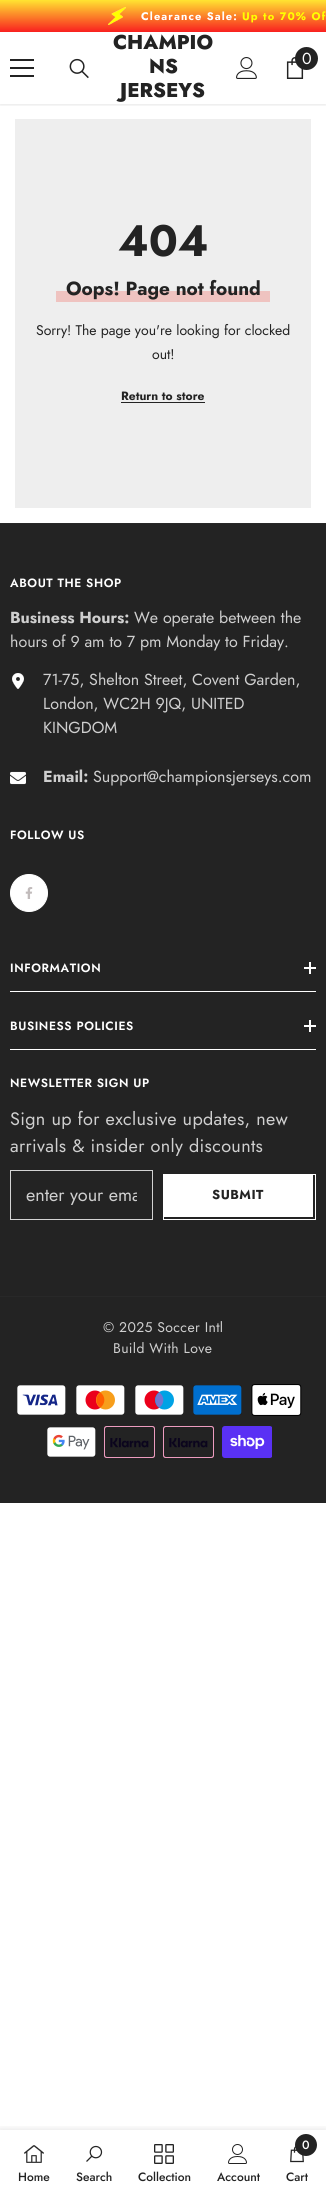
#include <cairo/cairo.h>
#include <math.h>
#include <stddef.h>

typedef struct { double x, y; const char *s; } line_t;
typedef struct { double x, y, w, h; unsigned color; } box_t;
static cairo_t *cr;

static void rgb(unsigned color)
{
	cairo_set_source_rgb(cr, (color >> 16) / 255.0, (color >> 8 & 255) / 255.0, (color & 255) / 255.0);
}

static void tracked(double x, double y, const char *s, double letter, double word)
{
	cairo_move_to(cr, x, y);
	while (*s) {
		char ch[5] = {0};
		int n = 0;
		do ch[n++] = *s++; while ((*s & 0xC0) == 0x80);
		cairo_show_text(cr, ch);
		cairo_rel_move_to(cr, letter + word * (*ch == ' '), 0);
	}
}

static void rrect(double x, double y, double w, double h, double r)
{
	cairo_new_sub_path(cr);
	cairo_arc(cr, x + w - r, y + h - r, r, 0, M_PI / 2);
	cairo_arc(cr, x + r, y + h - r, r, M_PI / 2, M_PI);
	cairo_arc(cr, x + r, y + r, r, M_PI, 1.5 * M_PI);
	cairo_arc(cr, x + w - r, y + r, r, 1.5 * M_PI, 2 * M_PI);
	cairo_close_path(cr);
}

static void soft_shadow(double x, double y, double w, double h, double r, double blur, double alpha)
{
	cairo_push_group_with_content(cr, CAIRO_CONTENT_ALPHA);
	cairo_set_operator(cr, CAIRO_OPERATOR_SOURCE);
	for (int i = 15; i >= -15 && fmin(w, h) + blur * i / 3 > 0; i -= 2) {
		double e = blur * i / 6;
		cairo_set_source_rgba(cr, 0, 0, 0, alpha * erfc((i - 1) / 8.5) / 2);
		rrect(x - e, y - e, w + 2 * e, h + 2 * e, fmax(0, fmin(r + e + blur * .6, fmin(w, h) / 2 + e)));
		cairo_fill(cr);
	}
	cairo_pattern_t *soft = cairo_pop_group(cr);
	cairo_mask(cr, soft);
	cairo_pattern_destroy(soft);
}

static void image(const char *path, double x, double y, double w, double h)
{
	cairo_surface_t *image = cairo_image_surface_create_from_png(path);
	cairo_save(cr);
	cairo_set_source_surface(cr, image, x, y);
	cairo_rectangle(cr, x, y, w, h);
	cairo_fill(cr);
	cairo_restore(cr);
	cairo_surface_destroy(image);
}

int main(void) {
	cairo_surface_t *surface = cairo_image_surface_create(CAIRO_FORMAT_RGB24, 326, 2194);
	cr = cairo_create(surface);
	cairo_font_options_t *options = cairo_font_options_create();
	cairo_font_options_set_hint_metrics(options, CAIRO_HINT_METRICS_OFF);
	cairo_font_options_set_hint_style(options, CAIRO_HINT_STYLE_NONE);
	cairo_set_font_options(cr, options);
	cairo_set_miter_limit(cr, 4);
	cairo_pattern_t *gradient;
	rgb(0xffffff);
	cairo_paint(cr);
	gradient = cairo_pattern_create_linear(163, 0, 163, 32);
	cairo_pattern_add_color_stop_rgba(gradient, 0, 1, 0.894, 0.192, 1);
	cairo_pattern_add_color_stop_rgba(gradient, 1, 0.976, 0.125, 0.125, 1);
	cairo_set_source(cr, gradient);
	cairo_pattern_destroy(gradient);
	cairo_rectangle(cr, 0, 0, 326, 32);
	cairo_fill(cr);
	image("img/1.png", 108, 7, 18, 18);
	cairo_save(cr);
	cairo_rectangle(cr, 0, 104, 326, 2);
	cairo_clip(cr);
	rgb(0x000000);
	soft_shadow(0, 33, 326, 72, 0, 1.5, 0.1);
	cairo_restore(cr);
	{
		static const box_t items[] = {
			{10, 67, 24, 2, 0x232323},
			{10, 59, 24, 2, 0x232323},
			{10, 75, 24, 2, 0x232323},
		};
		for (size_t i = 0; i < sizeof items / sizeof *items; i++) {
			rgb(items[i].color);
			cairo_rectangle(cr, items[i].x, items[i].y, items[i].w, items[i].h);
			cairo_fill(cr);
		}
	}
	image("img/2.png", 69, 58, 20, 21);
	image("img/3.png", 236, 57, 21, 22);
	image("img/4.png", 286, 57, 18, 22);
	cairo_arc(cr, 306.5, 58.5, 11.5, 0, 2 * M_PI);
	cairo_fill(cr);
	{
		static const box_t items[] = {
			{15, 119, 296, 389, 0xeeeeee},
			{56, 291, 214, 11, 0xefc3c0},
			{121, 402, 84, 1, 0x232323},
			{0, 524, 326, 772, 0x232323},
			{0, 523, 326, 1, 0x282828},
		};
		for (size_t i = 0; i < sizeof items / sizeof *items; i++) {
			rgb(items[i].color);
			cairo_rectangle(cr, items[i].x, items[i].y, items[i].w, items[i].h);
			cairo_fill(cr);
		}
	}
	image("img/5.png", 12, 673, 12, 16);
	image("img/6.png", 10, 771, 16, 14);
	rgb(0xffffff);
	cairo_arc(cr, 29, 893, 18.5, 0, 2 * M_PI);
	cairo_fill_preserve(cr);
	cairo_set_line_width(cr, 1);
	cairo_stroke(cr);
	image("img/7.png", 25, 887, 8, 12);
	{
		static const box_t items[] = {
			{10, 991, 306, 1, 0xffffff},
			{309, 962, 2, 12, 0xffffff},
			{304, 967, 12, 2, 0xffffff},
			{10, 1049, 306, 1, 0xffffff},
			{309, 1020, 2, 12, 0xffffff},
			{304, 1025, 12, 2, 0xffffff},
		};
		for (size_t i = 0; i < sizeof items / sizeof *items; i++) {
			rgb(items[i].color);
			cairo_rectangle(cr, items[i].x, items[i].y, items[i].w, items[i].h);
			cairo_fill(cr);
		}
	}
	cairo_rectangle(cr, 10.5, 1170.5, 142, 49);
	rgb(0xd3d3d3);
	cairo_stroke(cr);
	rgb(0xffffff);
	cairo_rectangle(cr, 164, 1175, 149, 42);
	cairo_fill(cr);
	cairo_rectangle(cr, 163.5, 1174.5, 152, 45);
	cairo_stroke(cr);
	rgb(0x232323);
	cairo_rectangle(cr, 0, 1297, 326, 206);
	cairo_fill(cr);
	rgb(0x282828);
	cairo_rectangle(cr, 0, 1296, 326, 1);
	cairo_fill(cr);
	image("img/8.png", 17, 1385, 49, 30);
	image("img/9.png", 76, 1385, 49, 30);
	image("img/10.png", 135, 1385, 49, 30);
	image("img/11.png", 193, 1385, 49, 30);
	image("img/12.png", 251, 1384, 51, 32);
	image("img/13.png", 47, 1427, 49, 30);
	image("img/14.png", 104, 1426, 51, 32);
	image("img/14.png", 163, 1426, 51, 32);
	image("img/15.png", 222, 1426, 50, 32);
	cairo_save(cr);
	cairo_rectangle(cr, 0, 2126, 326, 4);
	cairo_clip(cr);
	rgb(0x000000);
	soft_shadow(0, 2130, 326, 64, 0, 4.5, 0.12);
	cairo_restore(cr);
	image("img/16.png", 24, 2145, 20, 18);
	image("img/17.png", 86, 2145, 17, 17);
	image("img/18.png", 154, 2144, 20, 20);
	image("img/19.png", 228, 2144, 19, 20);
	image("img/20.png", 290, 2146, 14, 17);
	rgb(0x232323);
	cairo_arc(cr, 306, 2145, 11, 0, 2 * M_PI);
	cairo_fill(cr);
	cairo_select_font_face(cr, "Jost", CAIRO_FONT_SLANT_NORMAL, CAIRO_FONT_WEIGHT_BOLD);
	cairo_set_font_size(cr, 11);
	rgb(0xffffff);
	tracked(141, 20, "Clearance Sale:", 1.1, 0);
	rgb(0xffff00);
	tracked(242, 20, "Up to 70% Of", 1.1, 0);
	cairo_select_font_face(cr, "Jost ExtraBold", CAIRO_FONT_SLANT_NORMAL, CAIRO_FONT_WEIGHT_NORMAL);
	cairo_set_font_size(cr, 20);
	rgb(0x232323);
	{
		static const line_t items[] = {
			{113, 49, "CHAMPIO"},
			{149, 73, "NS"},
			{120, 97, "JERSEYS"},
		};
		for (size_t i = 0; i < sizeof items / sizeof *items; i++) {
			cairo_move_to(cr, items[i].x, items[i].y);
			cairo_show_text(cr, items[i].s);
		}
	}
	cairo_select_font_face(cr, "Jost", CAIRO_FONT_SLANT_NORMAL, CAIRO_FONT_WEIGHT_NORMAL);
	cairo_set_font_size(cr, 16);
	rgb(0xffffff);
	cairo_move_to(cr, 302, 64);
	cairo_show_text(cr, "0");
	cairo_select_font_face(cr, "Jost", CAIRO_FONT_SLANT_NORMAL, CAIRO_FONT_WEIGHT_BOLD);
	cairo_set_font_size(cr, 44);
	rgb(0x232323);
	cairo_move_to(cr, 118, 256);
	cairo_show_text(cr, "404");
	cairo_set_font_size(cr, 19);
	cairo_move_to(cr, 66, 295);
	cairo_show_text(cr, "Oops! Page not found");
	cairo_select_font_face(cr, "Jost", CAIRO_FONT_SLANT_NORMAL, CAIRO_FONT_WEIGHT_NORMAL);
	cairo_set_font_size(cr, 14);
	cairo_move_to(cr, 36, 335);
	cairo_show_text(cr, "Sorry! The page you're looking for clocked");
	cairo_move_to(cr, 152, 359);
	cairo_show_text(cr, "out!");
	cairo_select_font_face(cr, "Jost", CAIRO_FONT_SLANT_NORMAL, CAIRO_FONT_WEIGHT_BOLD);
	cairo_set_font_size(cr, 12);
	cairo_move_to(cr, 121, 400);
	cairo_show_text(cr, "Return to store");
	cairo_select_font_face(cr, "Jost SemiBold", CAIRO_FONT_SLANT_NORMAL, CAIRO_FONT_WEIGHT_NORMAL);
	rgb(0xffffff);
	tracked(10, 587, "ABOUT THE SHOP", 0.6, 0);
	cairo_select_font_face(cr, "Jost", CAIRO_FONT_SLANT_NORMAL, CAIRO_FONT_WEIGHT_BOLD);
	cairo_set_font_size(cr, 16);
	rgb(0xcfcfcf);
	cairo_move_to(cr, 10, 623);
	cairo_show_text(cr, "Business Hours:");
	cairo_select_font_face(cr, "Jost", CAIRO_FONT_SLANT_NORMAL, CAIRO_FONT_WEIGHT_NORMAL);
	{
		static const line_t items[] = {
			{134, 623, "We operate between the"},
			{10, 647, "hours of 9 am to 7 pm Monday to Friday."},
			{43, 685, "71-75, Shelton Street, Covent Garden,"},
			{43, 709, "London, WC2H 9JQ, UNITED"},
			{43, 733, "KINGDOM"},
		};
		for (size_t i = 0; i < sizeof items / sizeof *items; i++) {
			cairo_move_to(cr, items[i].x, items[i].y);
			cairo_show_text(cr, items[i].s);
		}
	}
	cairo_select_font_face(cr, "Jost", CAIRO_FONT_SLANT_NORMAL, CAIRO_FONT_WEIGHT_BOLD);
	cairo_move_to(cr, 43, 782);
	cairo_show_text(cr, "Email:");
	cairo_select_font_face(cr, "Jost", CAIRO_FONT_SLANT_NORMAL, CAIRO_FONT_WEIGHT_NORMAL);
	cairo_move_to(cr, 93, 782);
	cairo_show_text(cr, "Support@championsjerseys.com");
	cairo_select_font_face(cr, "Jost SemiBold", CAIRO_FONT_SLANT_NORMAL, CAIRO_FONT_WEIGHT_NORMAL);
	cairo_set_font_size(cr, 12);
	rgb(0xffffff);
	{
		static const line_t items[] = {
			{10, 839, "FOLLOW US"},
			{10, 972, "INFORMATION"},
			{10, 1030, "BUSINESS POLICIES"},
			{10, 1087, "NEWSLETTER SIGN UP"},
		};
		for (size_t i = 0; i < sizeof items / sizeof *items; i++) {
			tracked(items[i].x, items[i].y, items[i].s, 0.6, 0);
		}
	}
	cairo_select_font_face(cr, "Jost", CAIRO_FONT_SLANT_NORMAL, CAIRO_FONT_WEIGHT_NORMAL);
	cairo_set_font_size(cr, 18);
	rgb(0xcfcfcf);
	tracked(10, 1125, "Sign up for exclusive updates, new", 0.35, 0);
	tracked(10, 1152, "arrivals & insider only discounts", 0.35, 0);
	cairo_save(cr);
	cairo_rectangle(cr, 26, 1182, 111, 26);
	cairo_clip(cr);
	cairo_move_to(cr, 26, 1201);
	cairo_show_text(cr, "enter your ema");
	cairo_restore(cr);
	cairo_select_font_face(cr, "Jost", CAIRO_FONT_SLANT_NORMAL, CAIRO_FONT_WEIGHT_BOLD);
	cairo_set_font_size(cr, 13);
	rgb(0x232323);
	tracked(212, 1199, "SUBMIT", 0.5, 0);
	cairo_select_font_face(cr, "Jost", CAIRO_FONT_SLANT_NORMAL, CAIRO_FONT_WEIGHT_NORMAL);
	cairo_set_font_size(cr, 14);
	rgb(0xcfcfcf);
	tracked(103, 1332, "© 2025 Soccer Intl", 0.35, 0);
	tracked(113, 1353, "Build With Love", 0.35, 0);
	cairo_select_font_face(cr, "Jost Medium", CAIRO_FONT_SLANT_NORMAL, CAIRO_FONT_WEIGHT_NORMAL);
	cairo_set_font_size(cr, 12);
	rgb(0x232323);
	{
		static const line_t items[] = {
			{18, 2181, "Home"},
			{76, 2181, "Search"},
			{138, 2181, "Collection"},
			{217, 2181, "Account"},
		};
		for (size_t i = 0; i < sizeof items / sizeof *items; i++) {
			cairo_move_to(cr, items[i].x, items[i].y);
			cairo_show_text(cr, items[i].s);
		}
	}
	rgb(0xffffff);
	cairo_move_to(cr, 302, 2149);
	cairo_show_text(cr, "0");
	rgb(0x232323);
	cairo_move_to(cr, 286, 2181);
	cairo_show_text(cr, "Cart");
	cairo_surface_write_to_png(surface, "page.png");
	cairo_font_options_destroy(options);
	cairo_destroy(cr);
	cairo_surface_destroy(surface);
	return 0;
}
